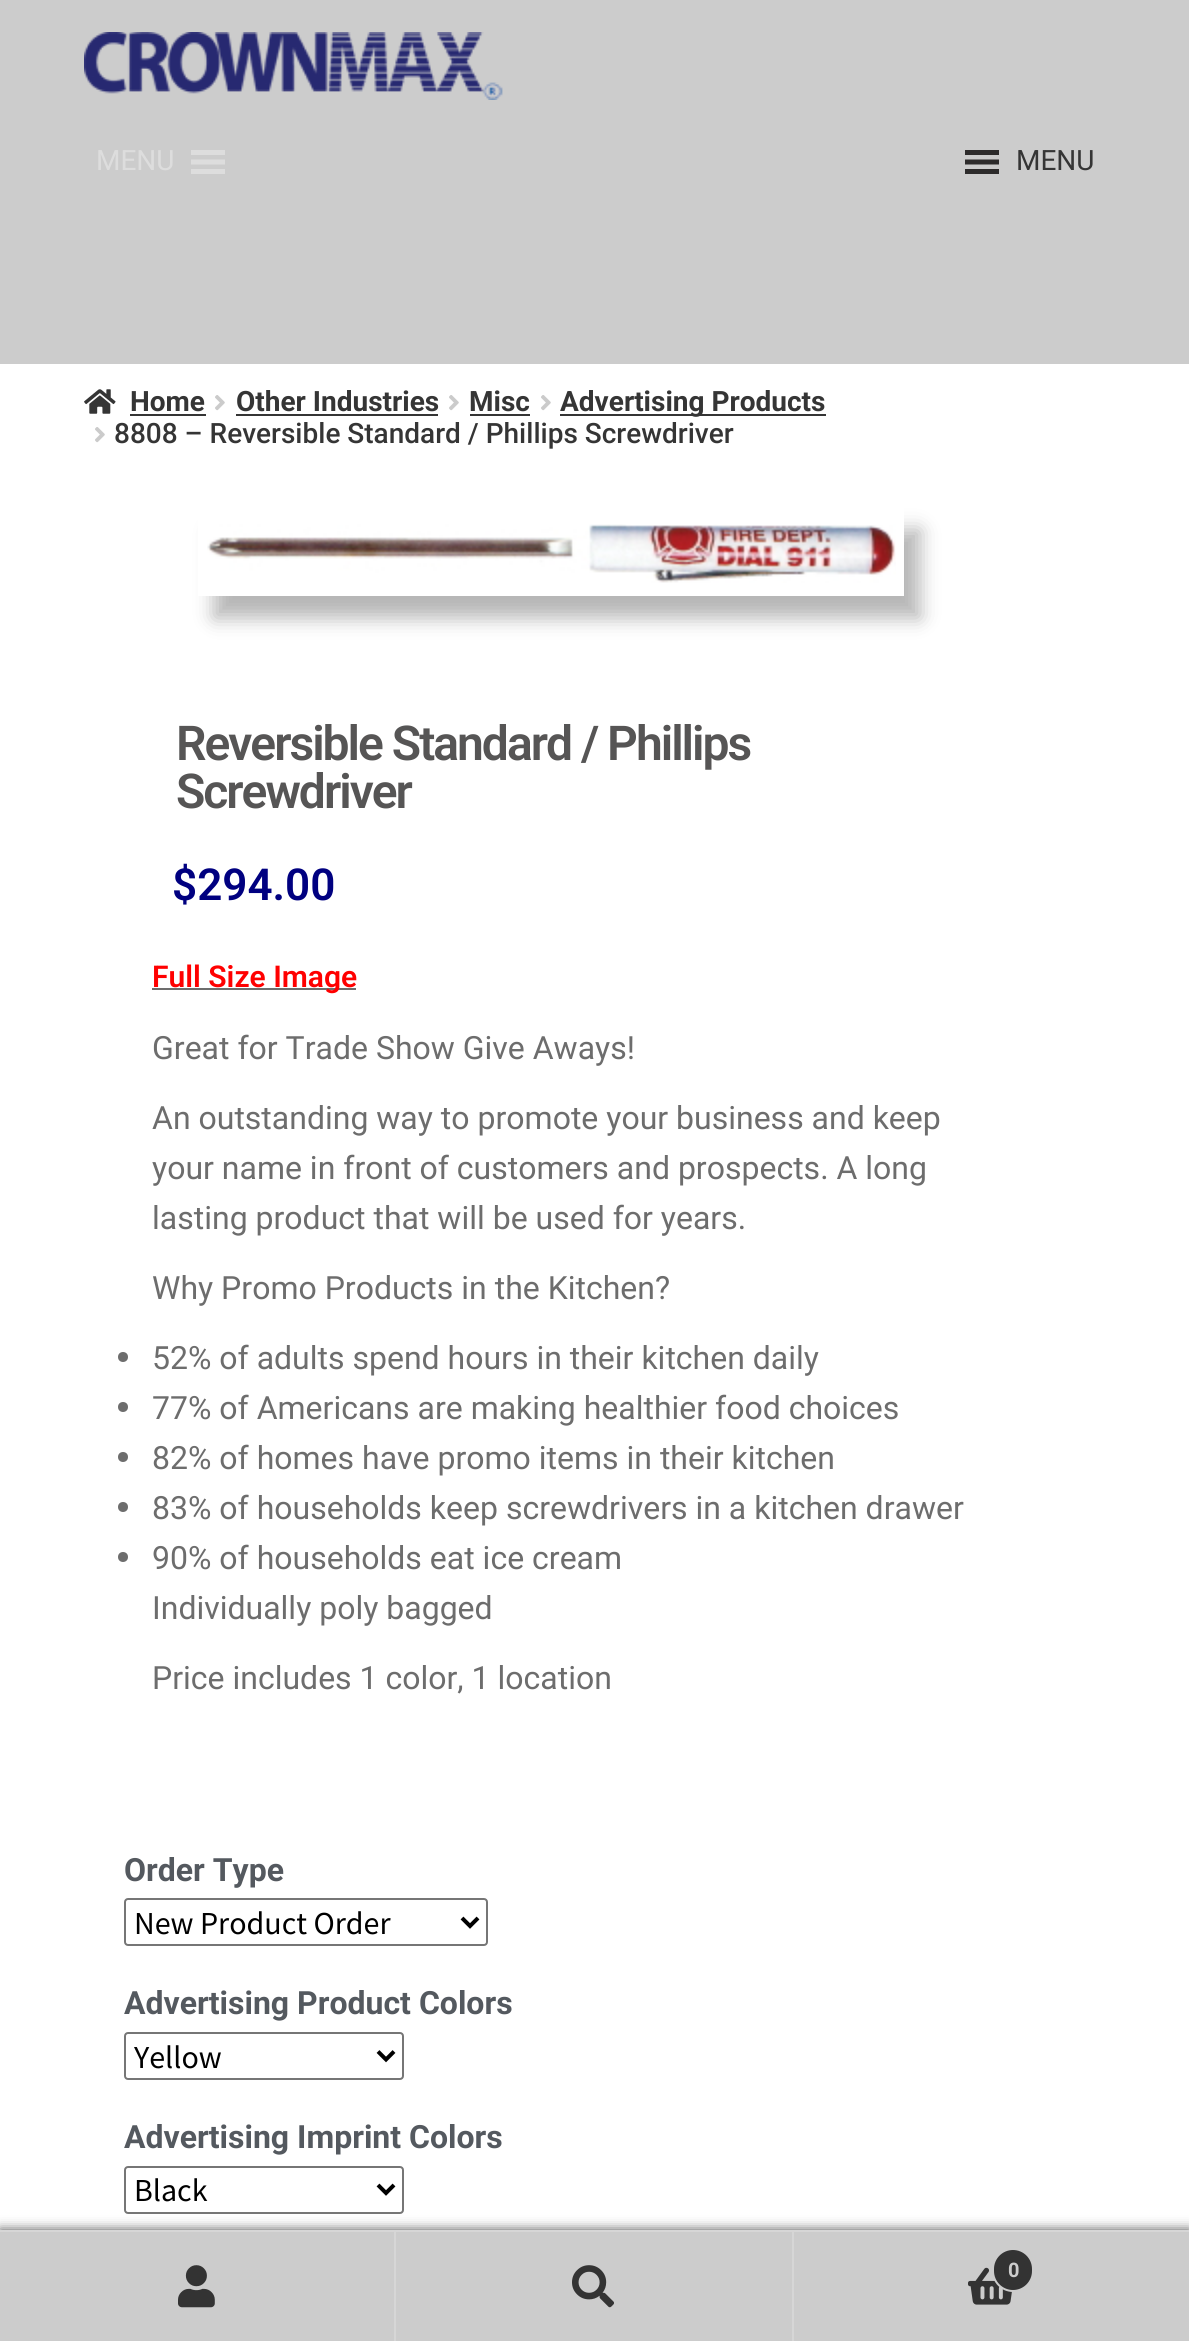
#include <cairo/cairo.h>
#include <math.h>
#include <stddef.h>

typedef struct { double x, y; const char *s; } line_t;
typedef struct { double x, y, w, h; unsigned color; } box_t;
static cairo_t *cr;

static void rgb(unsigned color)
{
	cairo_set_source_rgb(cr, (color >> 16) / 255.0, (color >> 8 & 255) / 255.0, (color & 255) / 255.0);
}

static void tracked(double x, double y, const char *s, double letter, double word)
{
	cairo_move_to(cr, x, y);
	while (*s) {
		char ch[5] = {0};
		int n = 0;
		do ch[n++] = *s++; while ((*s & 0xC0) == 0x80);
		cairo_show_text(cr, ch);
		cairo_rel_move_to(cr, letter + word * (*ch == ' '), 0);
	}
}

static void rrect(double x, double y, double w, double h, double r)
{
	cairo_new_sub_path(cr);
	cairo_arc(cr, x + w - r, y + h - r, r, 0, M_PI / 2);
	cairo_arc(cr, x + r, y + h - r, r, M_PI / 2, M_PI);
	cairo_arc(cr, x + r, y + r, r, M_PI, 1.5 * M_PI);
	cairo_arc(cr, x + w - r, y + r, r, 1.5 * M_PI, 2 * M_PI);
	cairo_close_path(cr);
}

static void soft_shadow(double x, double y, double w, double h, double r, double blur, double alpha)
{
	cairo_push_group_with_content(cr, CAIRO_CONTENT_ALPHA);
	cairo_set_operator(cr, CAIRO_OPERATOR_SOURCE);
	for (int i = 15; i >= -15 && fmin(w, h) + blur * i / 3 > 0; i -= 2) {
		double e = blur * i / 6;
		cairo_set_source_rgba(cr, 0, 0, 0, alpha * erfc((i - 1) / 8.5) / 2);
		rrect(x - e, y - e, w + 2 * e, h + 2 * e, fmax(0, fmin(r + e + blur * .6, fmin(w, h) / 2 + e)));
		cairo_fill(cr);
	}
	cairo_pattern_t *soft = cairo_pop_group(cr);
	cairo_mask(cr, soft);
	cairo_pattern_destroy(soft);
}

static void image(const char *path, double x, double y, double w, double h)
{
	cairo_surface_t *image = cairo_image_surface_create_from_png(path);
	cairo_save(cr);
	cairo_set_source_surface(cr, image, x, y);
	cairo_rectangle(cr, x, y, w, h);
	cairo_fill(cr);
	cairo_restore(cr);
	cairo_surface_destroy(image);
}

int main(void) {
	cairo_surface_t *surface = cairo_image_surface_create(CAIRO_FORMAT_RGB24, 1189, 2341);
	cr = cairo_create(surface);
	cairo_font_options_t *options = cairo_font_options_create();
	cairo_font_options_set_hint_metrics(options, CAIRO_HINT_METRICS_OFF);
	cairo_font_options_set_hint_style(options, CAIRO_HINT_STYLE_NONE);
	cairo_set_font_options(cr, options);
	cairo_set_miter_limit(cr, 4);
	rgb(0xffffff);
	cairo_paint(cr);
	rgb(0xcccccc);
	cairo_rectangle(cr, 0, 0, 1189, 364);
	cairo_fill(cr);
	image("img/1.png", 84, 32, 419, 68);
	rgb(0xdddddd);
	cairo_new_path(cr);
	cairo_move_to(cr, 191, 174);
	cairo_line_to(cr, 225, 174);
	cairo_line_to(cr, 225, 169);
	cairo_line_to(cr, 191, 169);
	cairo_close_path(cr);
	cairo_move_to(cr, 191, 150);
	cairo_line_to(cr, 191, 155);
	cairo_line_to(cr, 225, 155);
	cairo_line_to(cr, 225, 150);
	cairo_close_path(cr);
	cairo_move_to(cr, 191, 164.5);
	cairo_line_to(cr, 225, 164.5);
	cairo_line_to(cr, 225, 159.5);
	cairo_line_to(cr, 191, 159.5);
	cairo_close_path(cr);
	cairo_fill(cr);
	rgb(0x2d2b2b);
	cairo_new_path(cr);
	cairo_move_to(cr, 965, 174);
	cairo_line_to(cr, 999, 174);
	cairo_line_to(cr, 999, 169);
	cairo_line_to(cr, 965, 169);
	cairo_close_path(cr);
	cairo_move_to(cr, 965, 150);
	cairo_line_to(cr, 965, 155);
	cairo_line_to(cr, 999, 155);
	cairo_line_to(cr, 999, 150);
	cairo_close_path(cr);
	cairo_move_to(cr, 965, 164.5);
	cairo_line_to(cr, 999, 164.5);
	cairo_line_to(cr, 999, 159.5);
	cairo_line_to(cr, 965, 159.5);
	cairo_close_path(cr);
	cairo_fill(cr);
	image("img/2.png", 84, 389, 32, 25);
	rgb(0x353535);
	cairo_rectangle(cr, 130, 414, 76, 2);
	cairo_fill(cr);
	image("img/3.png", 215, 395, 10, 16);
	cairo_rectangle(cr, 236, 414, 202, 2);
	cairo_fill(cr);
	image("img/3.png", 449, 395, 10, 16);
	cairo_rectangle(cr, 470, 414, 60, 2);
	cairo_fill(cr);
	image("img/3.png", 541, 395, 10, 16);
	cairo_rectangle(cr, 560, 414, 266, 2);
	cairo_fill(cr);
	image("img/3.png", 95, 427, 10, 16);
	cairo_save(cr);
	cairo_set_fill_rule(cr, CAIRO_FILL_RULE_EVEN_ODD);
	cairo_new_path(cr);
	cairo_move_to(cr, 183, 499);
	cairo_line_to(cr, 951, 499);
	cairo_line_to(cr, 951, 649);
	cairo_line_to(cr, 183, 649);
	cairo_close_path(cr);
	cairo_move_to(cr, 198, 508);
	cairo_line_to(cr, 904, 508);
	cairo_line_to(cr, 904, 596);
	cairo_line_to(cr, 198, 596);
	cairo_close_path(cr);
	cairo_clip(cr);
	rgb(0x000000);
	soft_shadow(214, 530, 706, 88, 0, 10, 0.29);
	cairo_restore(cr);
	image("img/4.png", 207, 524, 689, 59);
	rgb(0x6d6d6d);
	cairo_rectangle(cr, 152, 988, 204, 2);
	cairo_fill(cr);
	cairo_arc(cr, 123, 1357, 5, 0, 2 * M_PI);
	cairo_fill(cr);
	cairo_arc(cr, 123, 1407, 5, 0, 2 * M_PI);
	cairo_fill(cr);
	cairo_arc(cr, 123, 1457, 5, 0, 2 * M_PI);
	cairo_fill(cr);
	cairo_arc(cr, 123, 1507, 5, 0, 2 * M_PI);
	cairo_fill(cr);
	cairo_arc(cr, 123, 1557, 5, 0, 2 * M_PI);
	cairo_fill(cr);
	rrect(125, 1899, 362, 46, 3);
	rgb(0x767676);
	cairo_stroke(cr);
	cairo_new_path(cr);
	cairo_move_to(cr, 462, 1918);
	cairo_line_to(cr, 470, 1926);
	cairo_line_to(cr, 478, 1918);
	rgb(0x000000);
	cairo_set_line_width(cr, 4);
	cairo_stroke(cr);
	rrect(125, 2033, 278, 46, 3);
	rgb(0x767676);
	cairo_set_line_width(cr, 2);
	cairo_stroke(cr);
	cairo_new_path(cr);
	cairo_move_to(cr, 378, 2051.5);
	cairo_line_to(cr, 386, 2059.5);
	cairo_line_to(cr, 394, 2051.5);
	rgb(0x000000);
	cairo_set_line_width(cr, 4);
	cairo_stroke(cr);
	rrect(125, 2167, 278, 46, 3);
	rgb(0x767676);
	cairo_set_line_width(cr, 2);
	cairo_stroke(cr);
	cairo_new_path(cr);
	cairo_move_to(cr, 378, 2185);
	cairo_line_to(cr, 386, 2193);
	cairo_line_to(cr, 394, 2185);
	rgb(0x000000);
	cairo_set_line_width(cr, 4);
	cairo_stroke(cr);
	rgb(0x000000);
	soft_shadow(0, 2230, 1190, 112, 0, 6, 0.7);
	{
		static const box_t items[] = {
			{0, 2230, 1189, 2, 0xd6d6d6},
			{0, 2232, 394, 109, 0xcccccc},
			{394, 2232, 2, 109, 0xd6d6d6},
		};
		for (size_t i = 0; i < sizeof items / sizeof *items; i++) {
			rgb(items[i].color);
			cairo_rectangle(cr, items[i].x, items[i].y, items[i].w, items[i].h);
			cairo_fill(cr);
		}
	}
	image("img/5.png", 178, 2265, 37, 43);
	rgb(0xcccccc);
	cairo_rectangle(cr, 396, 2232, 396, 109);
	cairo_fill(cr);
	rgb(0xd6d6d6);
	cairo_rectangle(cr, 792, 2232, 2, 109);
	cairo_fill(cr);
	image("img/6.png", 572, 2265, 42, 43);
	rgb(0xcccccc);
	cairo_rectangle(cr, 794, 2232, 395, 109);
	cairo_fill(cr);
	image("img/7.png", 968, 2267, 44, 38);
	rgb(0x333333);
	rrect(993, 2249, 40, 42, 20);
	cairo_fill_preserve(cr);
	rgb(0xcccccc);
	cairo_set_line_width(cr, 2);
	cairo_stroke(cr);
	cairo_select_font_face(cr, "Roboto", CAIRO_FONT_SLANT_NORMAL, CAIRO_FONT_WEIGHT_NORMAL);
	cairo_set_font_size(cr, 28);
	rgb(0xdddddd);
	cairo_move_to(cr, 96, 170);
	cairo_show_text(cr, "MENU");
	rgb(0x353535);
	cairo_move_to(cr, 1016, 170);
	cairo_show_text(cr, "MENU");
	cairo_select_font_face(cr, "Roboto", CAIRO_FONT_SLANT_NORMAL, CAIRO_FONT_WEIGHT_BOLD);
	{
		static const line_t items[] = {
			{130, 411, "Home"},
			{236, 411, "Other Industries"},
			{469, 411, "Misc"},
			{560, 411, "Advertising Products"},
		};
		for (size_t i = 0; i < sizeof items / sizeof *items; i++) {
			cairo_move_to(cr, items[i].x, items[i].y);
			cairo_show_text(cr, items[i].s);
		}
	}
	cairo_select_font_face(cr, "Roboto Medium", CAIRO_FONT_SLANT_NORMAL, CAIRO_FONT_WEIGHT_NORMAL);
	cairo_move_to(cr, 114, 443);
	cairo_show_text(cr, "8808 – Reversible Standard / Phillips Screwdriver");
	cairo_select_font_face(cr, "Roboto SemiBold", CAIRO_FONT_SLANT_NORMAL, CAIRO_FONT_WEIGHT_NORMAL);
	cairo_set_font_size(cr, 48);
	rgb(0x565555);
	tracked(176, 760, "Reversible Standard / Phillips", -2, 0);
	tracked(176, 808, "Screwdriver", -2, 0);
	cairo_set_font_size(cr, 44);
	rgb(0x000080);
	cairo_move_to(cr, 172, 900);
	cairo_show_text(cr, "$294.00");
	cairo_set_font_size(cr, 30);
	rgb(0xff0000);
	cairo_move_to(cr, 152, 987);
	cairo_show_text(cr, "Full Size Image");
	cairo_select_font_face(cr, "Roboto", CAIRO_FONT_SLANT_NORMAL, CAIRO_FONT_WEIGHT_NORMAL);
	cairo_set_font_size(cr, 32);
	rgb(0x6d6d6d);
	{
		static const line_t items[] = {
			{152, 1059, "Great for Trade Show Give Aways!"},
			{152, 1129, "An outstanding way to promote your business and keep"},
			{152, 1179, "your name in front of customers and prospects. A long"},
			{152, 1229, "lasting product that will be used for years."},
			{152, 1299, "Why Promo Products in the Kitchen?"},
			{152, 1369, "52% of adults spend hours in their kitchen daily"},
			{152, 1419, "77% of Americans are making healthier food choices"},
			{152, 1469, "82% of homes have promo items in their kitchen"},
			{152, 1519, "83% of households keep screwdrivers in a kitchen drawer"},
			{152, 1569, "90% of households eat ice cream"},
			{152, 1619, "Individually poly bagged"},
			{152, 1689, "Price includes 1 color, 1 location"},
		};
		for (size_t i = 0; i < sizeof items / sizeof *items; i++) {
			cairo_move_to(cr, items[i].x, items[i].y);
			cairo_show_text(cr, items[i].s);
		}
	}
	cairo_select_font_face(cr, "Roboto", CAIRO_FONT_SLANT_NORMAL, CAIRO_FONT_WEIGHT_BOLD);
	rgb(0x54595f);
	cairo_move_to(cr, 124, 1881);
	cairo_show_text(cr, "Order Type");
	cairo_select_font_face(cr, "Source Sans Pro", CAIRO_FONT_SLANT_NORMAL, CAIRO_FONT_WEIGHT_NORMAL);
	rgb(0x000000);
	cairo_move_to(cr, 134, 1934);
	cairo_show_text(cr, "New Product Order");
	cairo_select_font_face(cr, "Roboto", CAIRO_FONT_SLANT_NORMAL, CAIRO_FONT_WEIGHT_BOLD);
	rgb(0x54595f);
	cairo_move_to(cr, 124, 2014);
	cairo_show_text(cr, "Advertising Product Colors");
	cairo_select_font_face(cr, "Source Sans Pro", CAIRO_FONT_SLANT_NORMAL, CAIRO_FONT_WEIGHT_NORMAL);
	rgb(0x000000);
	cairo_move_to(cr, 134, 2068);
	cairo_show_text(cr, "Yellow");
	cairo_select_font_face(cr, "Roboto", CAIRO_FONT_SLANT_NORMAL, CAIRO_FONT_WEIGHT_BOLD);
	rgb(0x54595f);
	cairo_move_to(cr, 124, 2148);
	cairo_show_text(cr, "Advertising Imprint Colors");
	cairo_select_font_face(cr, "Source Sans Pro", CAIRO_FONT_SLANT_NORMAL, CAIRO_FONT_WEIGHT_NORMAL);
	rgb(0x000000);
	cairo_move_to(cr, 134, 2201);
	cairo_show_text(cr, "Black");
	cairo_select_font_face(cr, "Roboto", CAIRO_FONT_SLANT_NORMAL, CAIRO_FONT_WEIGHT_BOLD);
	cairo_set_font_size(cr, 20);
	rgb(0xcccccc);
	cairo_move_to(cr, 1008, 2277);
	cairo_show_text(cr, "0");
	cairo_surface_write_to_png(surface, "page.png");
	cairo_font_options_destroy(options);
	cairo_destroy(cr);
	cairo_surface_destroy(surface);
	return 0;
}
